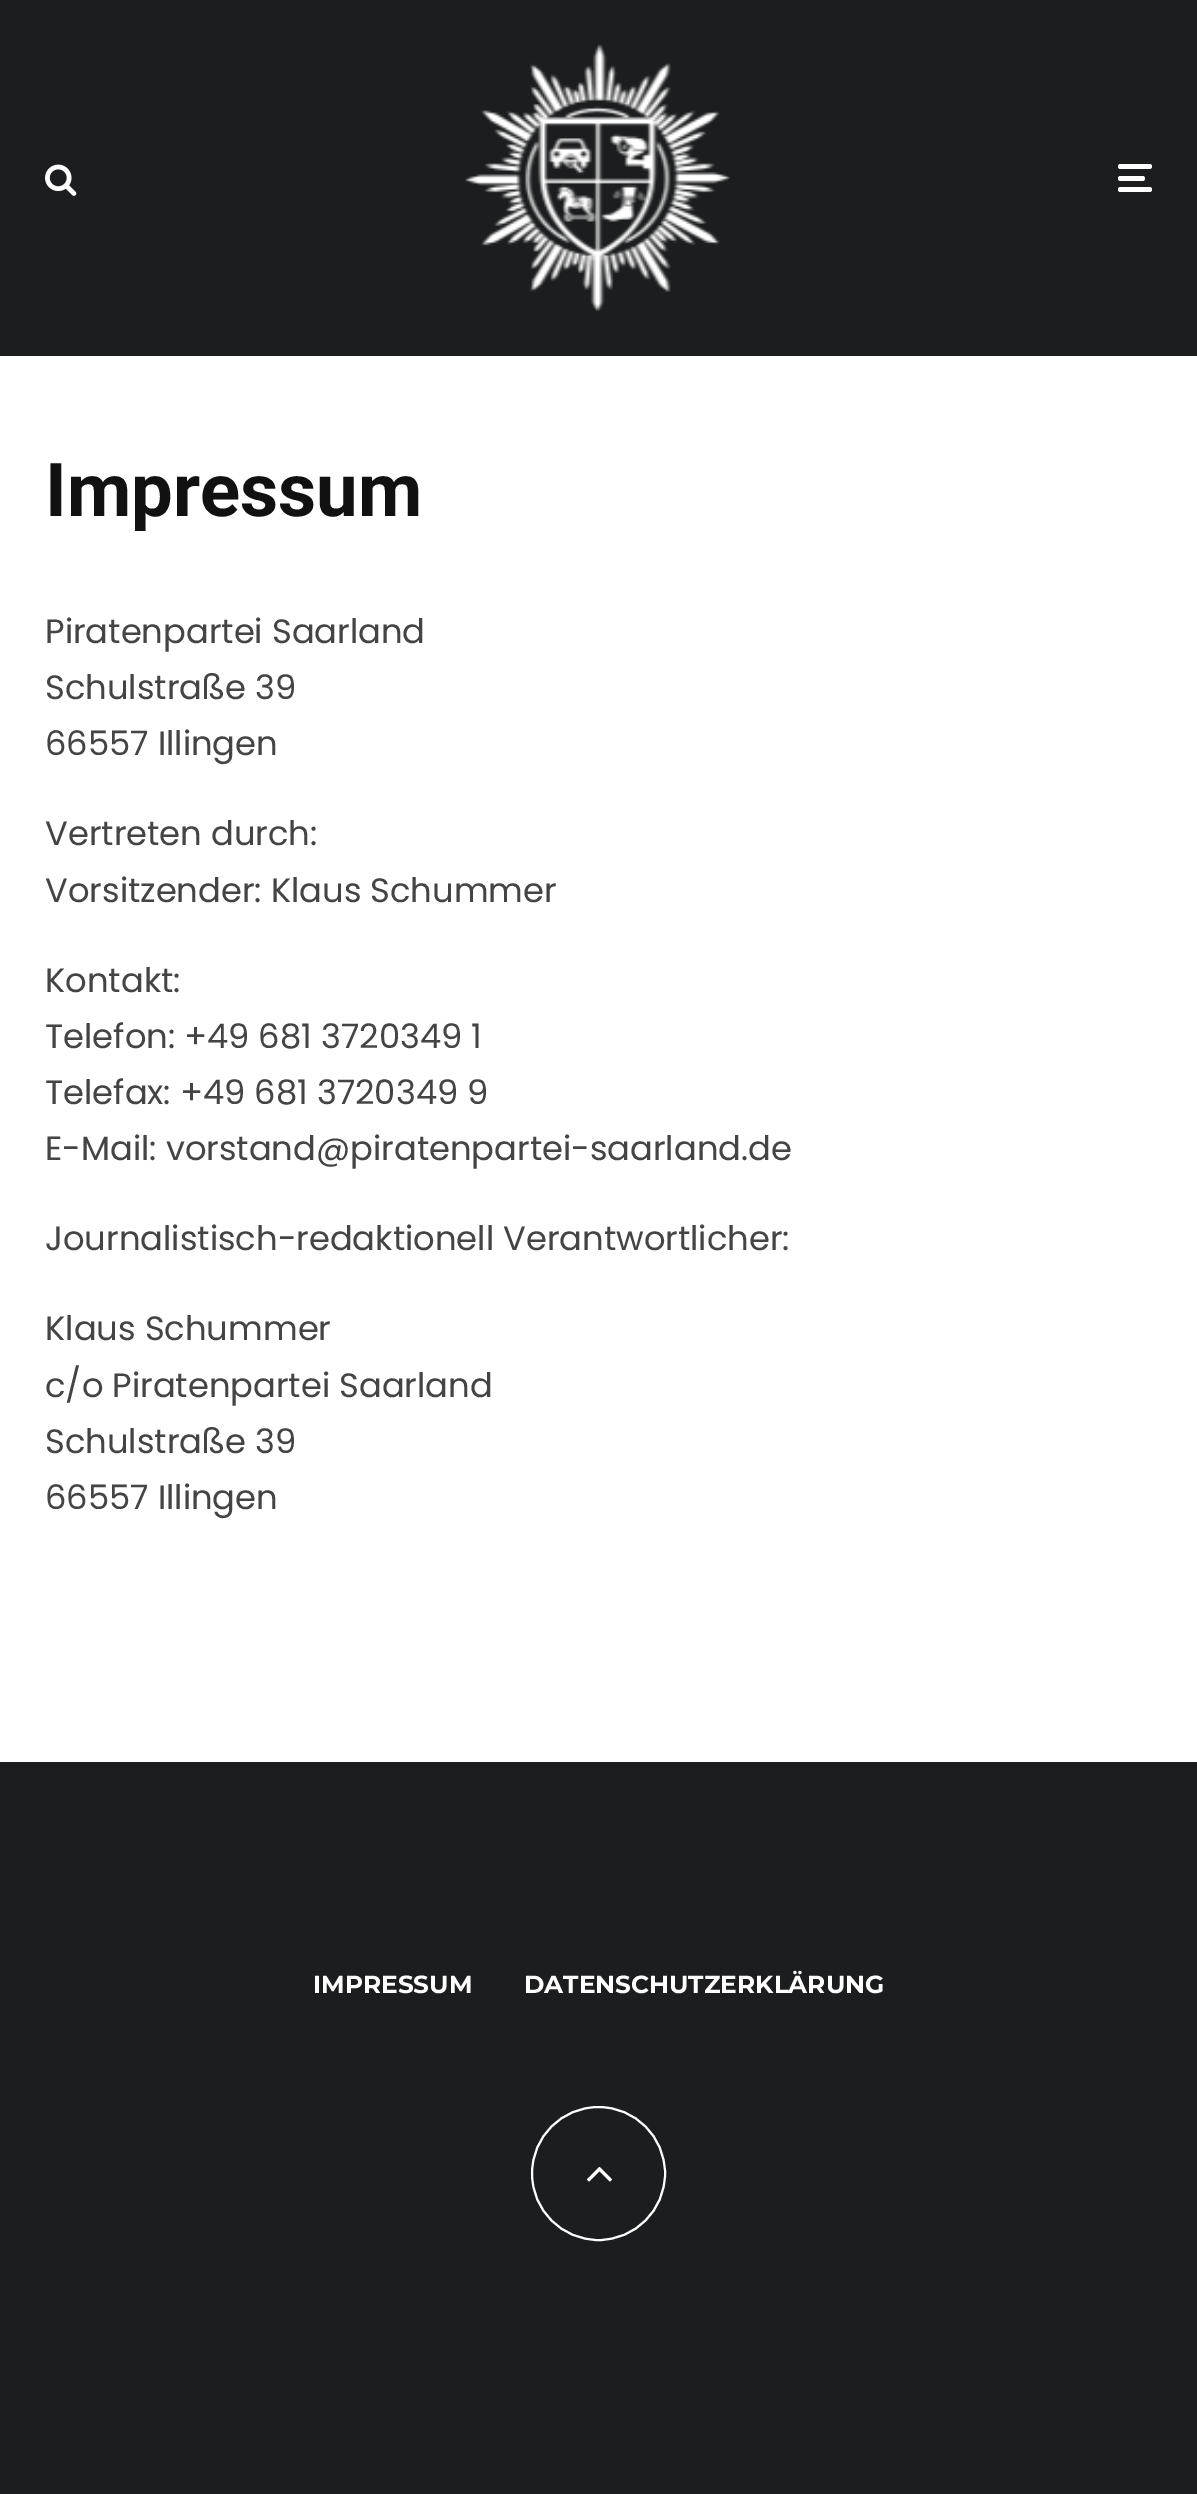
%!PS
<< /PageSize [1197 2494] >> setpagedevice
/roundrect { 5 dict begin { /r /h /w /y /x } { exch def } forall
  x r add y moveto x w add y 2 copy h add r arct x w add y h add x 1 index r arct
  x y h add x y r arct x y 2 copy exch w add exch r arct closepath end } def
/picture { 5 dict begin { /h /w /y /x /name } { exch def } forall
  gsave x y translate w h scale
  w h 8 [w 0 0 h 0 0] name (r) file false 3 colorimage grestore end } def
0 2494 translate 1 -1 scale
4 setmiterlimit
1 setgray
0 0 1197 2494 rectfill
0.11 0.114 0.118 setrgbcolor
0 0 1197 356 rectfill
(img1.rgb) 45 164 32 32 picture
(img2.rgb) 465 45 265 266 picture
1 setgray
1118 176 27 5 2.5 roundrect fill
1118 164 34 5 2.5 roundrect fill
1118 187 34 5 2.5 roundrect fill
/Roboto-Bold [74.25 0 0 -74.25 0 0] selectfont
0.067 setgray
45 516 moveto (Impressum) show
/Poppins-Regular [33.75 0 0 -33.75 0 0] selectfont
0.267 setgray
45 643 moveto (Piratenpartei Saarland) show
45 699 moveto (Schulstraße 39) show
45 755 moveto (66557 Illingen) show
45 845 moveto (Vertreten durch:) show
45 902 moveto (Vorsitzender: Klaus Schummer) show
45 992 moveto (Kontakt:) show
45 1048 moveto (Telefon: +49 681 3720349 1) show
45 1104 moveto (Telefax: +49 681 3720349 9) show
45 1160 moveto (E-Mail: vorstand@piratenpartei-saarland.de) show
45 1250 moveto (Journalistisch-redaktionell Verantwortlicher:) show
45 1340 moveto (Klaus Schummer) show
45 1397 moveto (c/o Piratenpartei Saarland) show
45 1453 moveto (Schulstraße 39) show
45 1509 moveto (66557 Illingen) show
0.11 0.114 0.118 setrgbcolor
0 1762 1197 732 rectfill
/Montserrat-Bold [24.75 0 0 -24.75 0 0] selectfont
1 setgray
313 1993 moveto (IMPRESSUM) show
524 1993 moveto (DATENSCHUTZERKLÄRUNG) show
2 setlinewidth
newpath 598.5 2173.5 66.5 0 360 arc closepath stroke
(img3.rgb) 587 2167 25 15 picture
showpage
